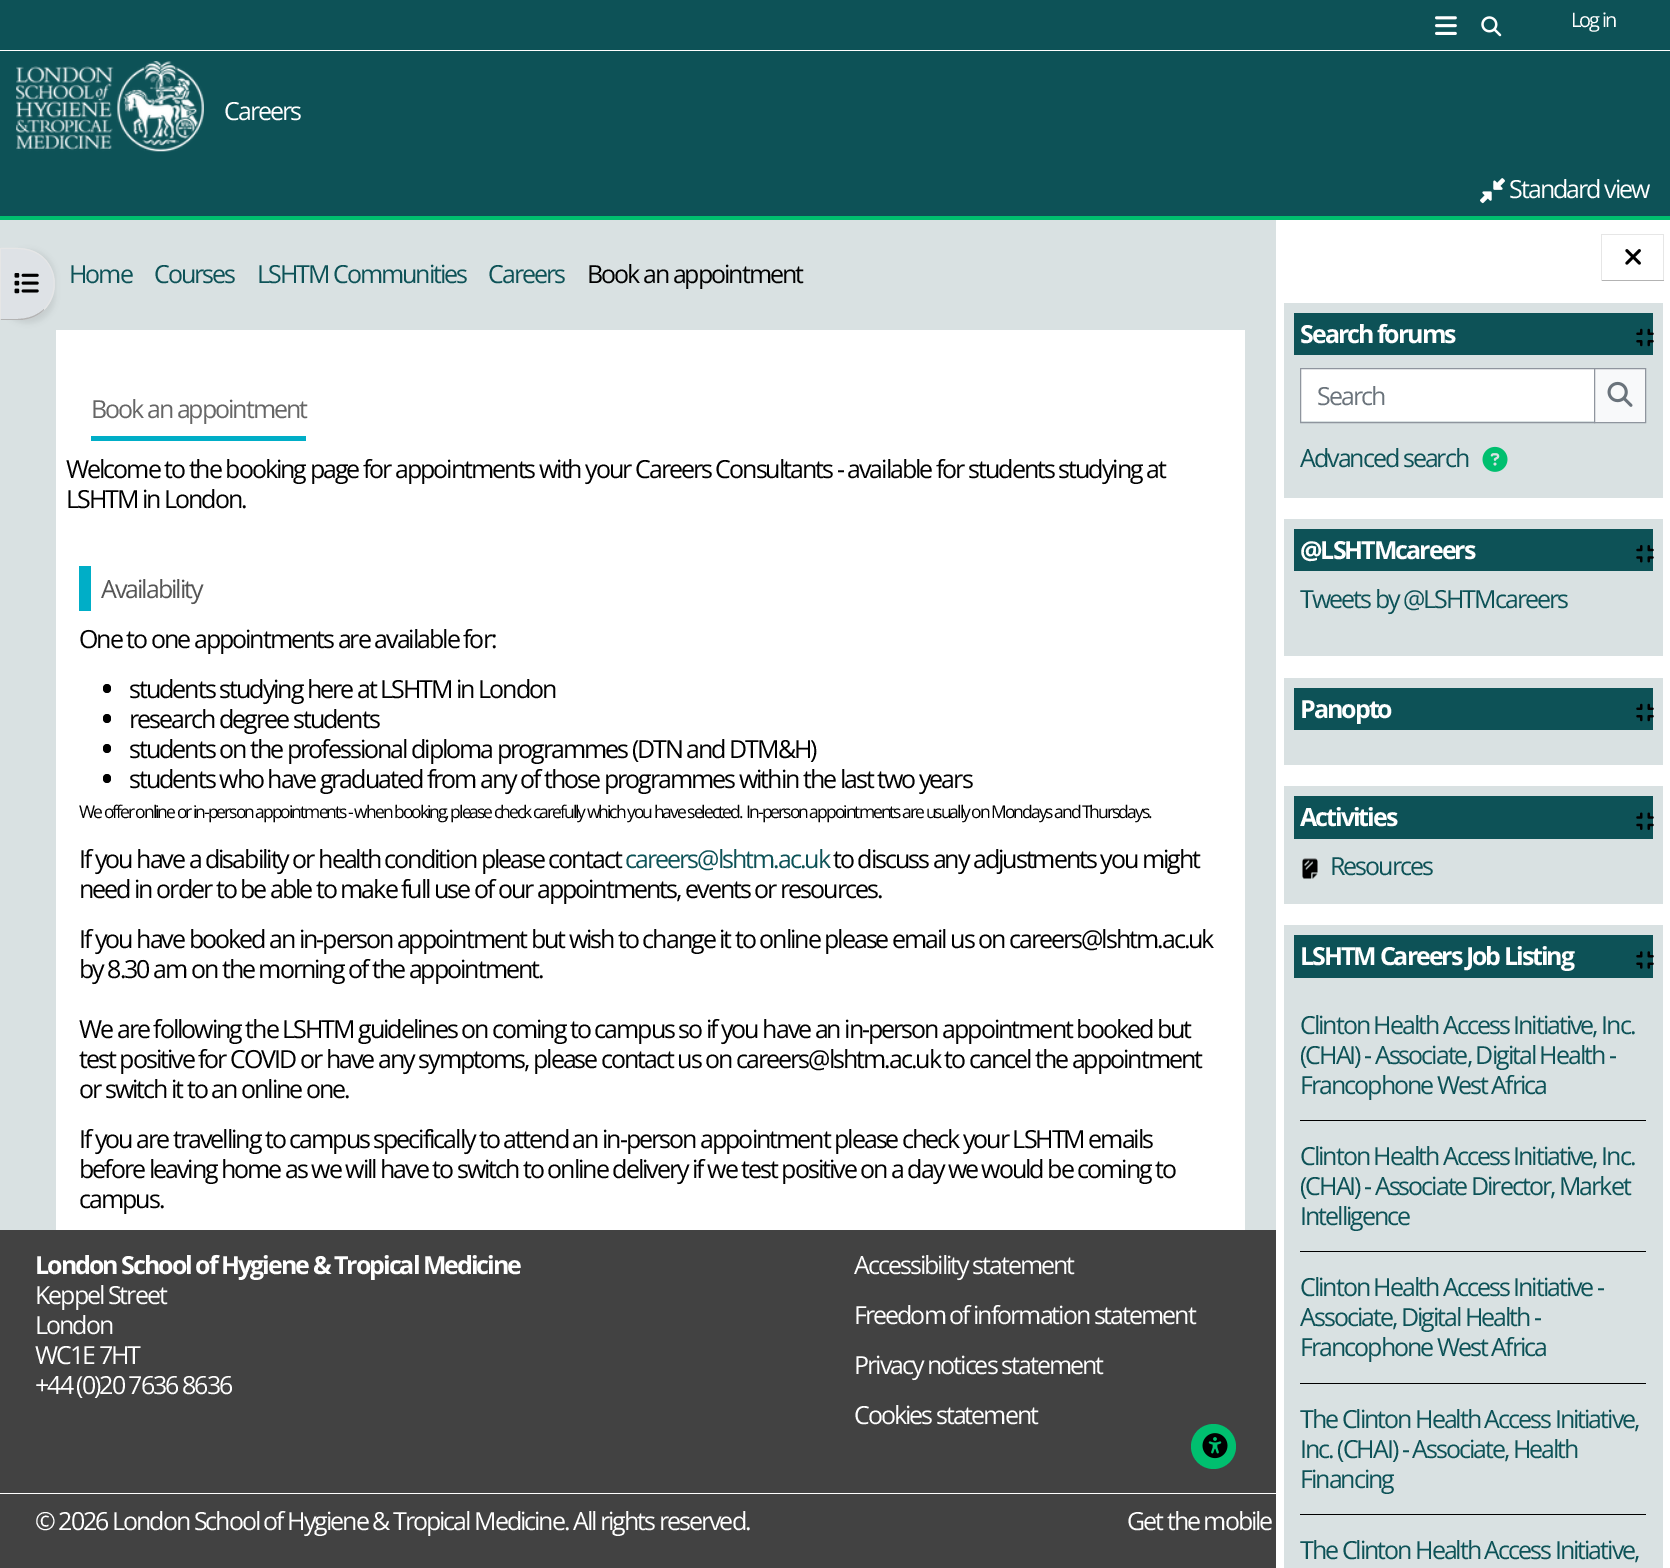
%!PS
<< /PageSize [1670 1568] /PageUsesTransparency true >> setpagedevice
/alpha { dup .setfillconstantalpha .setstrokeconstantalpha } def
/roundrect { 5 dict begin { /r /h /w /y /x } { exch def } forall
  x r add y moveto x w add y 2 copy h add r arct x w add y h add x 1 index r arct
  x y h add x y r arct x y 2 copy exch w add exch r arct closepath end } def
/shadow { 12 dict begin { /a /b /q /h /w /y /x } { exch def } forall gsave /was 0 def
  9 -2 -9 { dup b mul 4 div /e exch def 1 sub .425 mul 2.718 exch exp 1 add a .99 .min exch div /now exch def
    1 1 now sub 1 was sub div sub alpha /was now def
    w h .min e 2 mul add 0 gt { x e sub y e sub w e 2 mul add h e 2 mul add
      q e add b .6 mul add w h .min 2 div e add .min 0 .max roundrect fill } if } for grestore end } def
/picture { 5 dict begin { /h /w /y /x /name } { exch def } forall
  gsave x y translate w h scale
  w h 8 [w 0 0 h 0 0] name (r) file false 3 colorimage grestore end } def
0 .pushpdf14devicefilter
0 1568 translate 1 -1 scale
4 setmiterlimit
0.851 0.882 0.886 setrgbcolor
0 0 1670 1568 rectfill
0.051 0.322 0.341 setrgbcolor
0 0 1670 216 rectfill
1 setgray
0 50 1670 1 rectfill
(img1.rgb) 1435 16 22 19 picture
(img2.rgb) 1481 16 21 21 picture
/OpenSans-Regular [20 0 0 -20 0 0] selectfont
1571 27 moveto -2 0 (Log in) ashow
(img3.rgb) 16 61 188 91 picture
/OpenSans-Regular [25 0 0 -25 0 0] selectfont
224 120 moveto -2 0 (Careers) ashow
0 0.749 0.435 setrgbcolor
0 216 1670 4 rectfill
(img4.rgb) 1480 178 25 26 picture
1 setgray
1509 198 moveto -2 0 (Standard view) ashow
56 330 1189 900 rectfill
0 setgray
0 250 55 73 36 2.5 0.07 shadow
0.871 0.886 0.902 setrgbcolor
newpath 0 248 moveto 19 248 lineto 39 248 55 264 55 284 curveto 55 304 39 320 19 320 curveto 0 320 lineto closepath fill
0.902 setgray
newpath 44 258 moveto 32 246 16 248 0 248 curveto 2 249 lineto 17 249 32 247 44 259 curveto closepath 44 258 moveto 58 272 58 296 44 310 curveto 44 309 lineto 57 295 57 272 44 259 curveto closepath fill
0.702 setgray
newpath 19 320 moveto 29 320 38 316 44 310 curveto 44 309 lineto 31 321 17 319 1 319 curveto 0 320 lineto closepath fill
0.902 setgray
newpath 1 249 moveto 2 249 lineto 0 248 lineto 0 320 lineto 1 319 lineto closepath fill
(img5.rgb) 14 273 25 21 picture
0.051 0.322 0.341 setrgbcolor
69 283 moveto -2 0 (Home) ashow
154 283 moveto -2 0 (Courses) ashow
257 283 moveto -2 0 (LSHTM Communities) ashow
488 283 moveto -2 0 (Careers) ashow
0 setgray
587 283 moveto -2 0 (Book an appointment) ashow
0.4 setgray
91 418 moveto -2 0 (Book an appointment) ashow
0 0.682 0.78 setrgbcolor
91 436 215 5 rectfill
0 setgray
66 478 moveto -2 0 (Welcome to the booking page for appointments with your Careers Consultants - available for students studying at) ashow
66 508 moveto -2 0 (LSHTM in London.) ashow
0 0.682 0.78 setrgbcolor
79 566 12 45 rectfill
0.333 setgray
101 598 moveto -2 0 (Availability) ashow
0 setgray
79 648 moveto -2 0 (One to one appointments are available for:) ashow
103 684 8 9 4 roundrect fill
129 698 moveto -2 0 (students studying here at LSHTM in London) ashow
103 714 8 9 4 roundrect fill
129 728 moveto -2 0 (research degree students) ashow
103 744 8 9 4 roundrect fill
129 758 moveto -2 0 (students on the professional diploma programmes \(DTN and DTM&H\)) ashow
103 774 8 9 4 roundrect fill
129 788 moveto -2 0 (students who have graduated from any of those programmes within the last two years) ashow
/OpenSans-Regular [17.5 0 0 -17.5 0 0] selectfont
79 818 moveto -2 0 (We offer online or in-person appointments - when booking, please check carefully which you have selected.  In-person appointments are usually on Mondays and Thursdays.) ashow
/OpenSans-Regular [25 0 0 -25 0 0] selectfont
79 868 moveto -2 0 (If you have a disability or health condition please contact) ashow
0.051 0.322 0.341 setrgbcolor
625 868 moveto -2 0 (careers@lshtm.ac.uk) ashow
0 setgray
833 868 moveto -2 0 (to discuss any adjustments you might) ashow
79 898 moveto -2 0 (need in order to be able to make full use of our appointments, events or resources.) ashow
79 948 moveto -2 0 (If you have booked an in-person appointment but wish to change it to online please email us on careers@lshtm.ac.uk) ashow
79 978 moveto -2 0 (by 8.30 am on the morning of the appointment.) ashow
79 1038 moveto -2 0 (We are following the LSHTM guidelines on coming to campus so if you have an in-person appointment booked but) ashow
79 1068 moveto -2 0 (test positive for COVID or have any symptoms, please contact us on careers@lshtm.ac.uk to cancel the appointment) ashow
79 1098 moveto -2 0 (or switch it to an online one.) ashow
79 1148 moveto -2 0 (If you are travelling to campus specifically to attend an in-person appointment please check your LSHTM emails) ashow
79 1178 moveto -2 0 (before leaving home as we will have to switch to online delivery if we test positive on a day we would be coming to) ashow
79 1208 moveto -2 0 (campus.) ashow
0.259 setgray
0 1230 1276 338 rectfill
0 0.749 0.435 setrgbcolor
newpath 1213.5 1446.5 22.5 0 360 arc closepath fill
(img6.rgb) 1202 1433 26 26 picture
1 setgray
1276 220 394 1348 rectfill
0.902 setgray
1601 234 63 1 rectfill
1663 234 1 47 rectfill
0.702 setgray
1601 280 63 1 rectfill
0.902 setgray
1601 234 1 47 rectfill
(img7.rgb) 1625 249 16 16 picture
0.851 0.882 0.886 setrgbcolor
1284 303 379 195 rectfill
0.051 0.322 0.341 setrgbcolor
1294 313 359 42 rectfill
/OpenSans-Bold [25 0 0 -25 0 0] selectfont
1 setgray
1300 343 moveto -2 0 (Search forums) ashow
(img8.rgb) 1636 328 18 19 picture
1301 369 293 52 rectfill
0.561 0.584 0.62 setrgbcolor
1300.5 368.5 294 54 rectstroke
/OpenSans-Regular [25 0 0 -25 0 0] selectfont
0.416 0.451 0.482 setrgbcolor
1317 405 moveto -2 0 (Search) ashow
0.973 0.976 0.98 setrgbcolor
newpath 1594.5 368.5 moveto 1645.5 368.5 lineto 1645.5 422.5 lineto 1594.5 422.5 lineto closepath gsave fill grestore
0.561 0.584 0.62 setrgbcolor
stroke
(img9.rgb) 1607 381 26 26 picture
0.051 0.322 0.341 setrgbcolor
1300 467 moveto -2 0 (Advanced search) ashow
(img10.rgb) 1482 446 26 26 picture
0.851 0.882 0.886 setrgbcolor
1284 519 379 137 rectfill
0.051 0.322 0.341 setrgbcolor
1294 529 359 42 rectfill
/OpenSans-Bold [25 0 0 -25 0 0] selectfont
1 setgray
1300 559 moveto -2 0 (@LSHTMcareers) ashow
(img11.rgb) 1636 545 18 18 picture
/OpenSans-Regular [25 0 0 -25 0 0] selectfont
0.051 0.322 0.341 setrgbcolor
1300 608 moveto -2 0 (Tweets by @LSHTMcareers) ashow
0.851 0.882 0.886 setrgbcolor
1284 678 379 87 rectfill
0.051 0.322 0.341 setrgbcolor
1294 688 359 42 rectfill
/OpenSans-Bold [25 0 0 -25 0 0] selectfont
1 setgray
1300 718 moveto -2 0 (Panopto) ashow
(img8.rgb) 1636 703 18 19 picture
0.851 0.882 0.886 setrgbcolor
1284 786 379 118 rectfill
0.051 0.322 0.341 setrgbcolor
1294 796 359 43 rectfill
1 setgray
1300 826 moveto -2 0 (Activities) ashow
(img12.rgb) 1636 812 18 18 picture
(img13.rgb) 1302 858 16 21 picture
/OpenSans-Regular [25 0 0 -25 0 0] selectfont
0.051 0.322 0.341 setrgbcolor
1330 875 moveto -2 0 (Resources) ashow
0.851 0.882 0.886 setrgbcolor
1284 925 379 643 rectfill
0.051 0.322 0.341 setrgbcolor
1294 935 359 43 rectfill
/OpenSans-Bold [25 0 0 -25 0 0] selectfont
1 setgray
1300 965 moveto -2 0 (LSHTM Careers Job Listing) ashow
(img14.rgb) 1636 951 18 18 picture
/OpenSans-Regular [25 0 0 -25 0 0] selectfont
0.051 0.322 0.341 setrgbcolor
1300 1034 moveto -2 0 (Clinton Health Access Initiative, Inc.) ashow
1300 1064 moveto -2 0 (\(CHAI\) - Associate, Digital Health -) ashow
1300 1094 moveto -2 0 (Francophone West Africa) ashow
0 setgray
1300 1120 346 1 rectfill
0.051 0.322 0.341 setrgbcolor
1300 1165 moveto -2 0 (Clinton Health Access Initiative, Inc.) ashow
1300 1195 moveto -2 0 (\(CHAI\) - Associate Director, Market) ashow
1300 1225 moveto -2 0 (Intelligence) ashow
0 setgray
1300 1251 346 1 rectfill
0.051 0.322 0.341 setrgbcolor
1300 1296 moveto -2 0 (Clinton Health Access Initiative -) ashow
1300 1326 moveto -2 0 (Associate, Digital Health -) ashow
1300 1356 moveto -2 0 (Francophone West Africa) ashow
0 setgray
1300 1383 346 1 rectfill
0.051 0.322 0.341 setrgbcolor
1300 1428 moveto -2 0 (The Clinton Health Access Initiative,) ashow
1300 1458 moveto -2 0 (Inc. \(CHAI\) - Associate, Health) ashow
1300 1488 moveto -2 0 (Financing) ashow
0 setgray
1300 1514 346 1 rectfill
0.051 0.322 0.341 setrgbcolor
1300 1559 moveto -2 0 (The Clinton Health Access Initiative,) ashow
/OpenSans-Bold [25 0 0 -25 0 0] selectfont
1 setgray
35 1274 moveto -2 0 (London School of Hygiene & Tropical Medicine) ashow
/OpenSans-Regular [25 0 0 -25 0 0] selectfont
35 1304 moveto -2 0 (Keppel Street) ashow
35 1334 moveto -2 0 (London) ashow
35 1364 moveto -2 0 (WC1E 7HT) ashow
35 1394 moveto -2 0 (+44 \(0\)20 7636 8636) ashow
854 1274 moveto -2 0 (Accessibility statement) ashow
854 1324 moveto -2 0 (Freedom of information statement) ashow
854 1374 moveto -2 0 (Privacy notices statement) ashow
854 1424 moveto -2 0 (Cookies statement) ashow
0 1493 1276 1 rectfill
35 1530 moveto -2 0 (© 2026 London School of Hygiene & Tropical Medicine. All rights reserved.) ashow
1127 1530 moveto -2 0 (Get the mobile) ashow
.poppdf14devicefilter showpage
